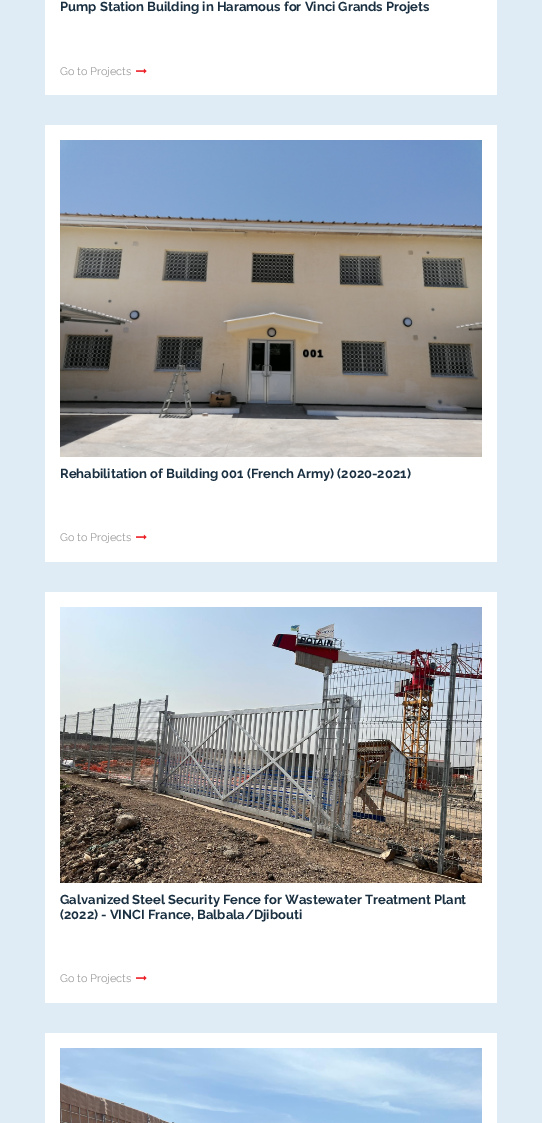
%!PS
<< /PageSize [542 1123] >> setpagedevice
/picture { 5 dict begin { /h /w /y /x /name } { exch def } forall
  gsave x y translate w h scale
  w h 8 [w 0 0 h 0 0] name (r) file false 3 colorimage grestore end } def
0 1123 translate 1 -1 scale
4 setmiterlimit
0.875 0.922 0.961 setrgbcolor
0 0 542 1123 rectfill
1 setgray
45 0 452 95 rectfill
/Raleway-Bold [13 0 0 -13 0 0] selectfont
0.102 0.188 0.255 setrgbcolor
60 11 moveto (Pump Station Building in Haramous for Vinci Grands Projets) show
/Raleway-Regular [11 0 0 -11 0 0] selectfont
0.6 setgray
60 75 moveto (Go to Projects) show
(img1.rgb) 136 68 11 6 picture
1 setgray
45 125 452 437 rectfill
(img2.rgb) 60 140 422 317 picture
/Raleway-Bold [13 0 0 -13 0 0] selectfont
0.102 0.188 0.255 setrgbcolor
60 478 moveto (Rehabilitation of Building 001 \(French Army\) \(2020-2021\)) show
/Raleway-Regular [11 0 0 -11 0 0] selectfont
0.6 setgray
60 541 moveto (Go to Projects) show
(img1.rgb) 136 534 11 6 picture
1 setgray
45 592 452 411 rectfill
(img3.rgb) 60 607 422 276 picture
/Raleway-Bold [13 0 0 -13 0 0] selectfont
0.102 0.188 0.255 setrgbcolor
60 904 moveto (Galvanized Steel Security Fence for Wastewater Treatment Plant) show
60 919 moveto (\(2022\) - VINCI France, Balbala/Djibouti) show
/Raleway-Regular [11 0 0 -11 0 0] selectfont
0.6 setgray
60 982 moveto (Go to Projects) show
(img1.rgb) 136 975 11 6 picture
1 setgray
45 1033 452 90 rectfill
(img4.rgb) 60 1048 422 75 picture
showpage
